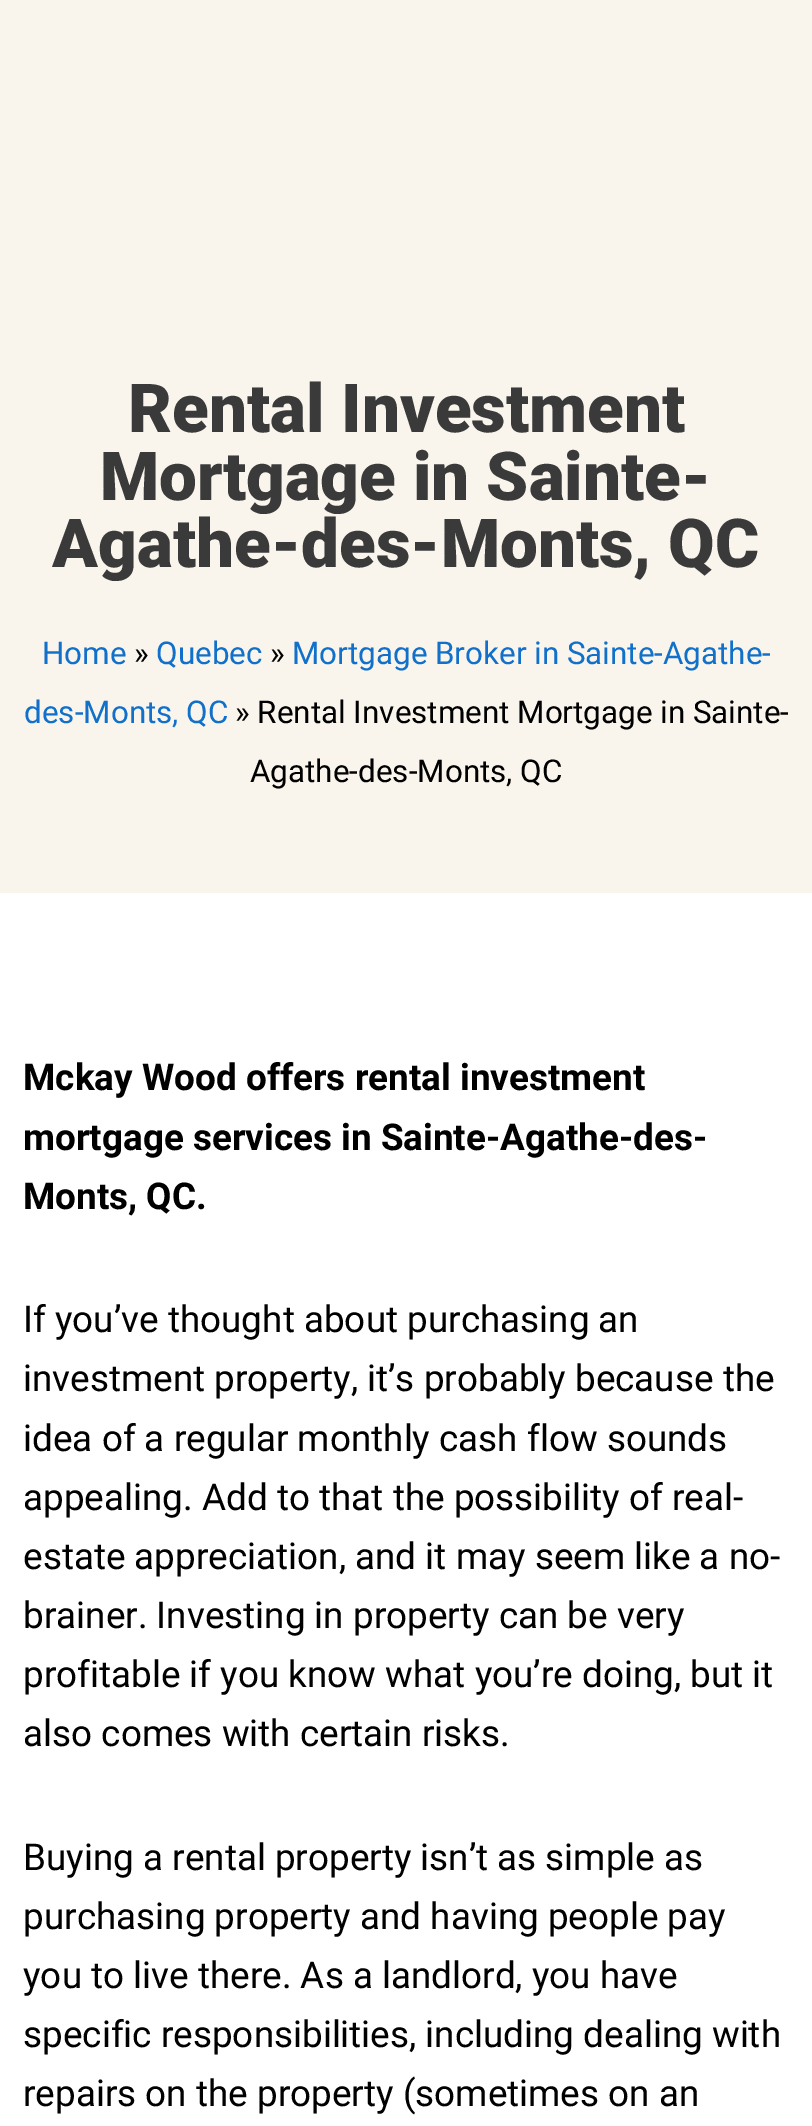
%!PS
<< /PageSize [812 2126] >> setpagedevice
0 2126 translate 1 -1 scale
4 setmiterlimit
1 setgray
0 0 812 2126 rectfill
0.976 0.961 0.925 setrgbcolor
0 0 812 893 rectfill
/Roboto-Black [67.5 0 0 -67.5 0 0] selectfont
0.227 setgray
128 432 moveto (Rental Investment) show
100 500 moveto (Mortgage in Sainte-) show
52 567 moveto (Agathe-des-Monts, QC) show
/Roboto-Regular [31.4 0 0 -31.4 0 0] selectfont
0.063 0.439 0.792 setrgbcolor
42 664 moveto (Home) show
0 setgray
134 664 moveto (») show
0.063 0.439 0.792 setrgbcolor
156 664 moveto (Quebec) show
0 setgray
270 664 moveto (») show
0.063 0.439 0.792 setrgbcolor
292 664 moveto (Mortgage Broker in Sainte-Agathe-) show
24 723 moveto (des-Monts, QC) show
0 setgray
235 723 moveto (» Rental Investment Mortgage in Sainte-) show
250 782 moveto (Agathe-des-Monts, QC) show
/Roboto-Bold [36.9 0 0 -36.9 0 0] selectfont
23 1090 moveto (Mckay Wood offers rental investment) show
23 1150 moveto (mortgage services in Sainte-Agathe-des-) show
23 1209 moveto (Monts, QC.) show
/Roboto-Regular [36.9 0 0 -36.9 0 0] selectfont
23 1332 moveto (If you’ve thought about purchasing an) show
23 1391 moveto (investment property, it’s probably because the) show
23 1451 moveto (idea of a regular monthly cash flow sounds) show
23 1510 moveto (appealing. Add to that the possibility of real-) show
23 1569 moveto (estate appreciation, and it may seem like a no-) show
23 1628 moveto (brainer. Investing in property can be very) show
23 1687 moveto (profitable if you know what you’re doing, but it) show
23 1746 moveto (also comes with certain risks.) show
23 1870 moveto (Buying a rental property isn’t as simple as) show
23 1929 moveto (purchasing property and having people pay) show
23 1988 moveto (you to live there. As a landlord, you have) show
23 2047 moveto (specific responsibilities, including dealing with) show
23 2106 moveto (repairs on the property \(sometimes on an) show
showpage
